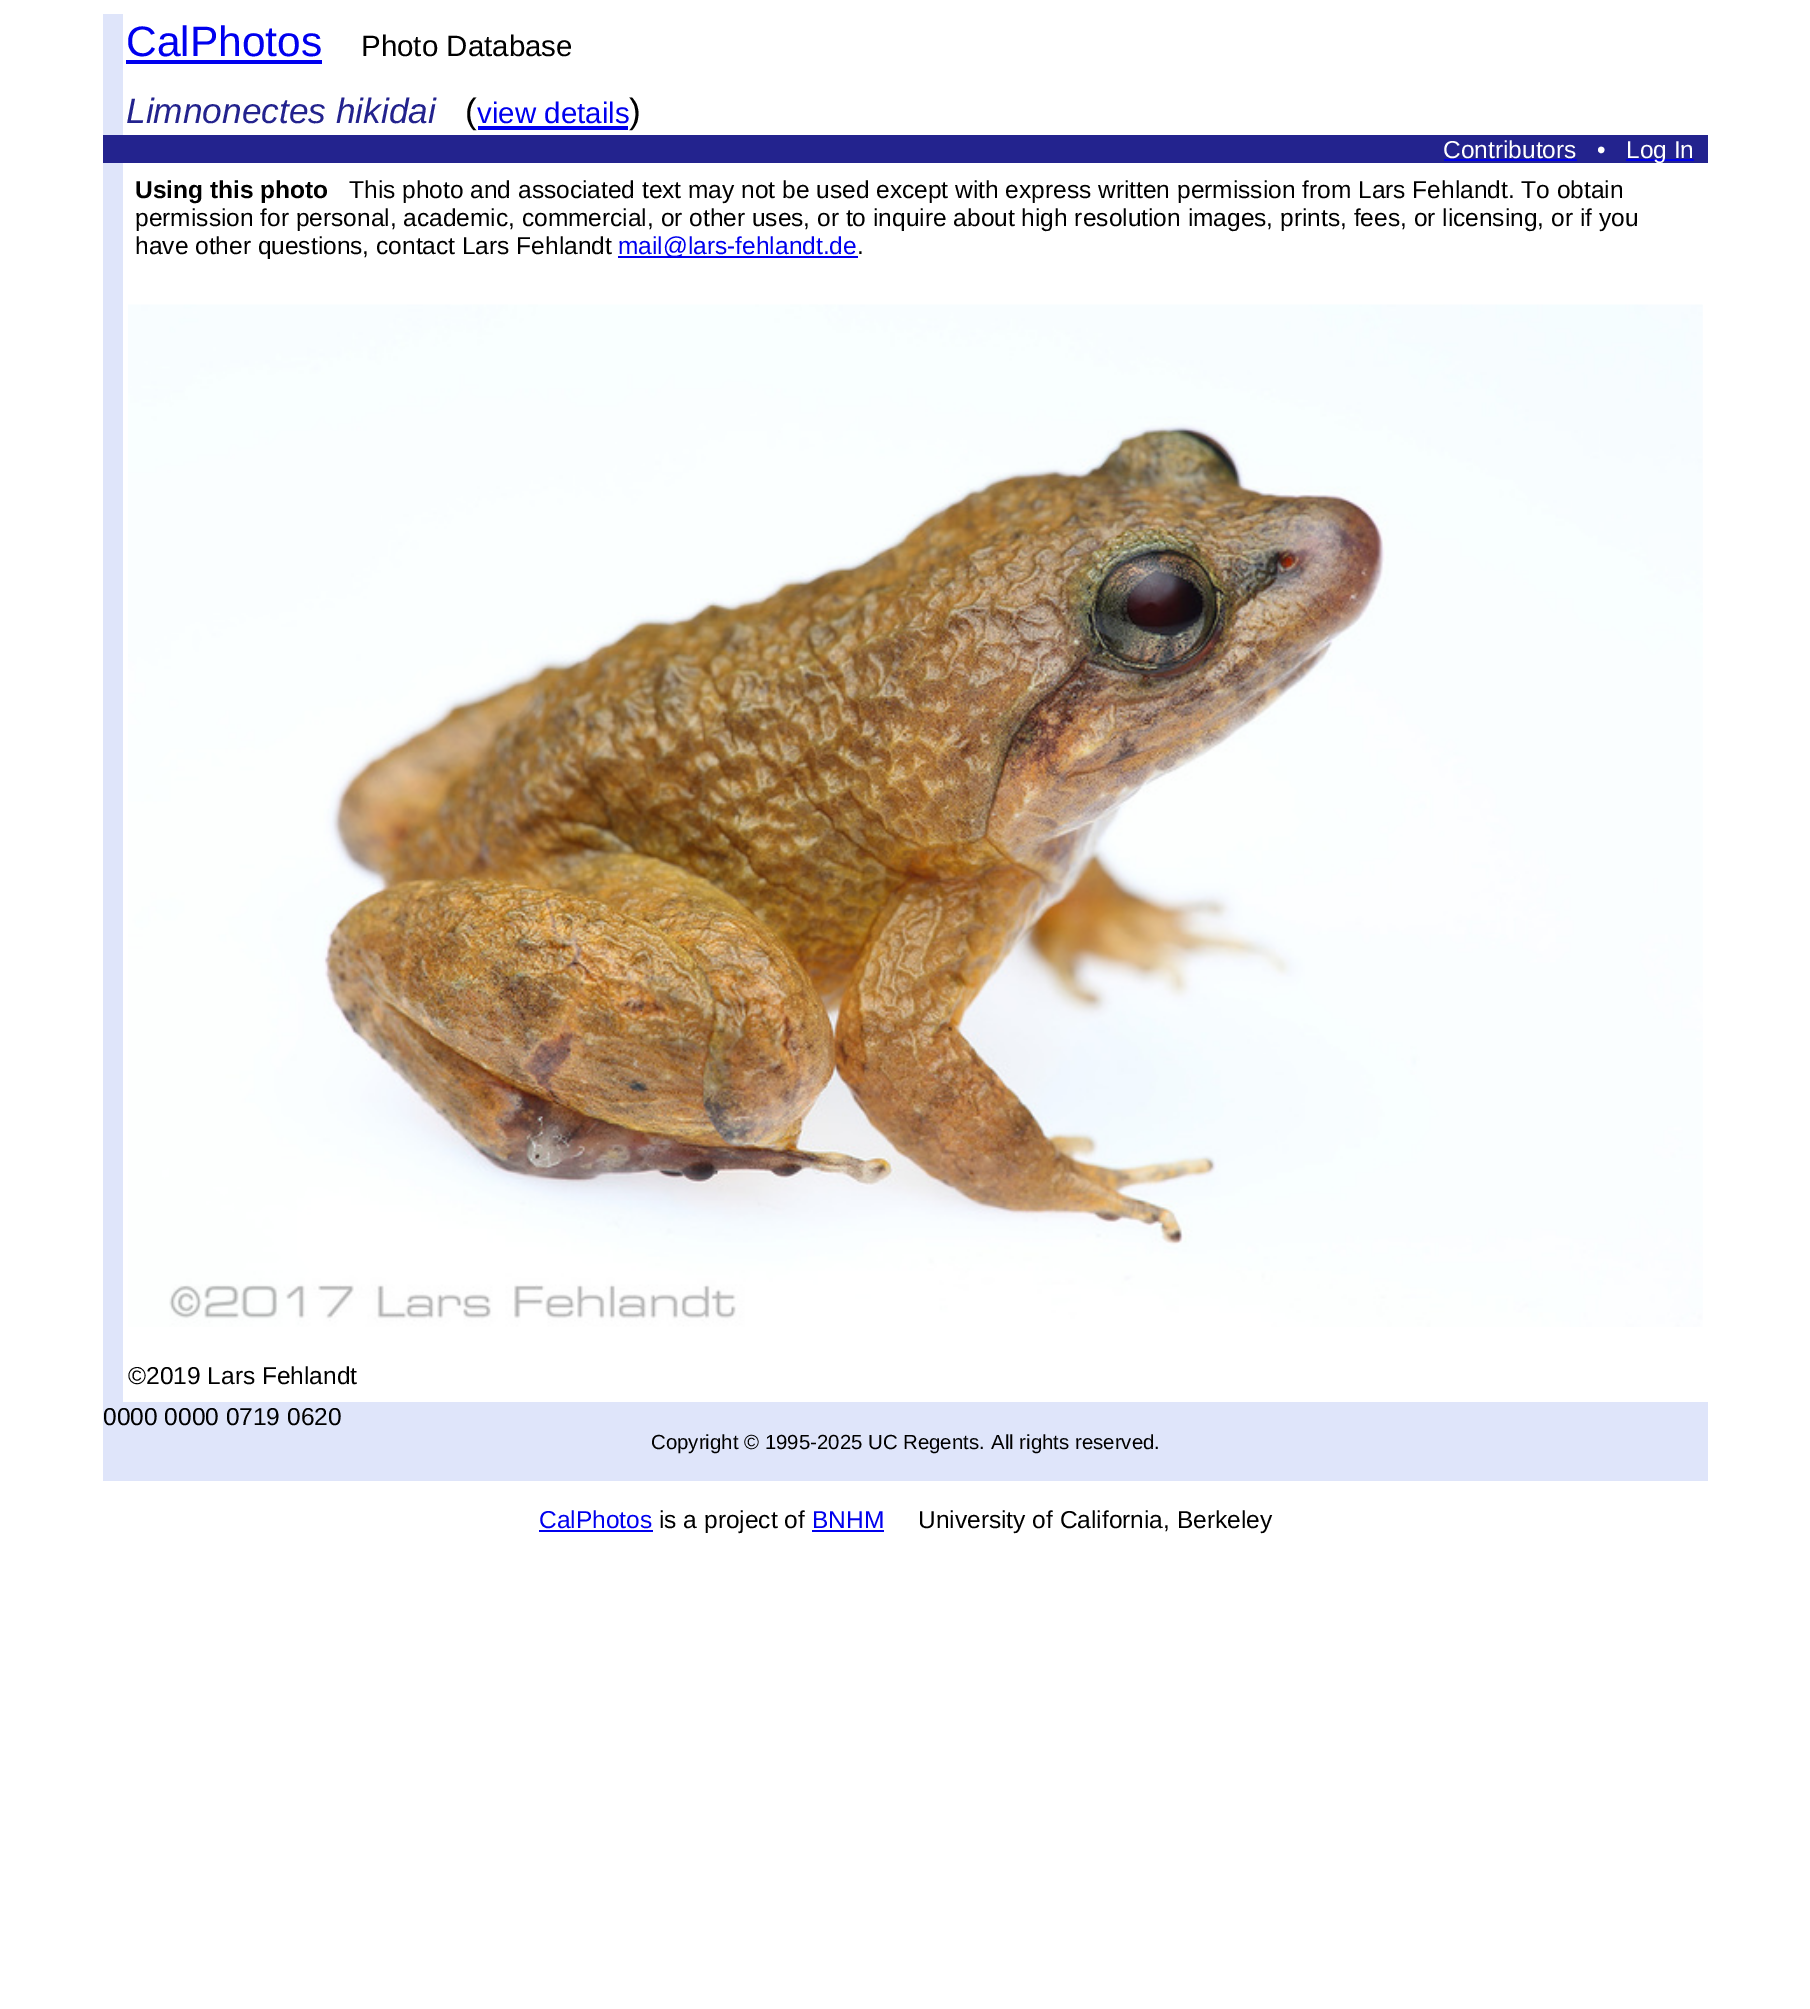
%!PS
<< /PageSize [1810 2009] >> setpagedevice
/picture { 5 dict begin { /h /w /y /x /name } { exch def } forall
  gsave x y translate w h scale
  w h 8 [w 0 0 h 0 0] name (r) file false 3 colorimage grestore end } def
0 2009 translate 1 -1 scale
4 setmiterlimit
1 setgray
0 0 1810 2009 rectfill
0.875 0.898 0.98 setrgbcolor
103 14 20 121 rectfill
/LiberationSans-Regular [42.5 0 0 -42.5 0 0] selectfont
0 0 0.933 setrgbcolor
126 56 moveto (CalPhotos) show
126 60 196 4 rectfill
/LiberationSans-Regular [29.5 0 0 -29.5 0 0] selectfont
0 setgray
361 56 moveto (Photo Database) show
/LiberationSans-Italic [35.25 0 0 -35.25 0 0] selectfont
0.137 0.137 0.557 setrgbcolor
126 123 moveto (Limnonectes hikidai) show
/LiberationSans-Regular [35.25 0 0 -35.25 0 0] selectfont
0 setgray
465 123 moveto (\() show
0 0 0.933 setrgbcolor
478 126 150 4 rectfill
/LiberationSans-Regular [29.5 0 0 -29.5 0 0] selectfont
477 123 moveto (view details) show
/LiberationSans-Regular [35.25 0 0 -35.25 0 0] selectfont
0 setgray
629 123 moveto (\)) show
0.137 0.137 0.557 setrgbcolor
103 135 1605 28 rectfill
/LiberationSans-Regular [24.5 0 0 -24.5 0 0] selectfont
1 setgray
1443 158 moveto (Contributors) show
0 0 0.933 setrgbcolor
1444 159 133 2 rectfill
1 setgray
1597 158 moveto (•) show
0 0 0.933 setrgbcolor
1626 159 68 2 rectfill
1 setgray
1626 158 moveto (Log In) show
0.875 0.898 0.98 setrgbcolor
103 163 20 1239 rectfill
/LiberationSans-Bold [24.5 0 0 -24.5 0 0] selectfont
0 setgray
135 198 moveto (Using this photo) show
/LiberationSans-Regular [24.5 0 0 -24.5 0 0] selectfont
349 198 moveto (This photo and associated text may not be used except with express written permission from Lars Fehlandt. To obtain) show
135 226 moveto (permission for personal, academic, commercial, or other uses, or to inquire about high resolution images, prints, fees, or licensing, or if you) show
135 254 moveto (have other questions, contact Lars Fehlandt) show
0 0 0.933 setrgbcolor
618 256 240 2 rectfill
618 254 moveto (mail@lars-fehlandt.de) show
0 setgray
857 254 moveto (.) show
(img1.rgb) 128 304 1575 1023 picture
128 1384 moveto (©2019 Lars Fehlandt) show
0.875 0.898 0.98 setrgbcolor
103 1402 1605 79 rectfill
0 setgray
103 1425 moveto (0000 0000 0719 0620) show
/LiberationSans-Regular [20.4 0 0 -20.4 0 0] selectfont
651 1449 moveto (Copyright © 1995-2025 UC Regents.) show
991 1449 moveto (All rights reserved.) show
/LiberationSans-Regular [24.5 0 0 -24.5 0 0] selectfont
0 0 0.933 setrgbcolor
539 1528 moveto (CalPhotos) show
539 1530 114 2 rectfill
0 setgray
659 1528 moveto (is a project of) show
0 0 0.933 setrgbcolor
812 1528 moveto (BNHM) show
812 1530 72 2 rectfill
0 setgray
918 1528 moveto (University of California, Berkeley) show
showpage
